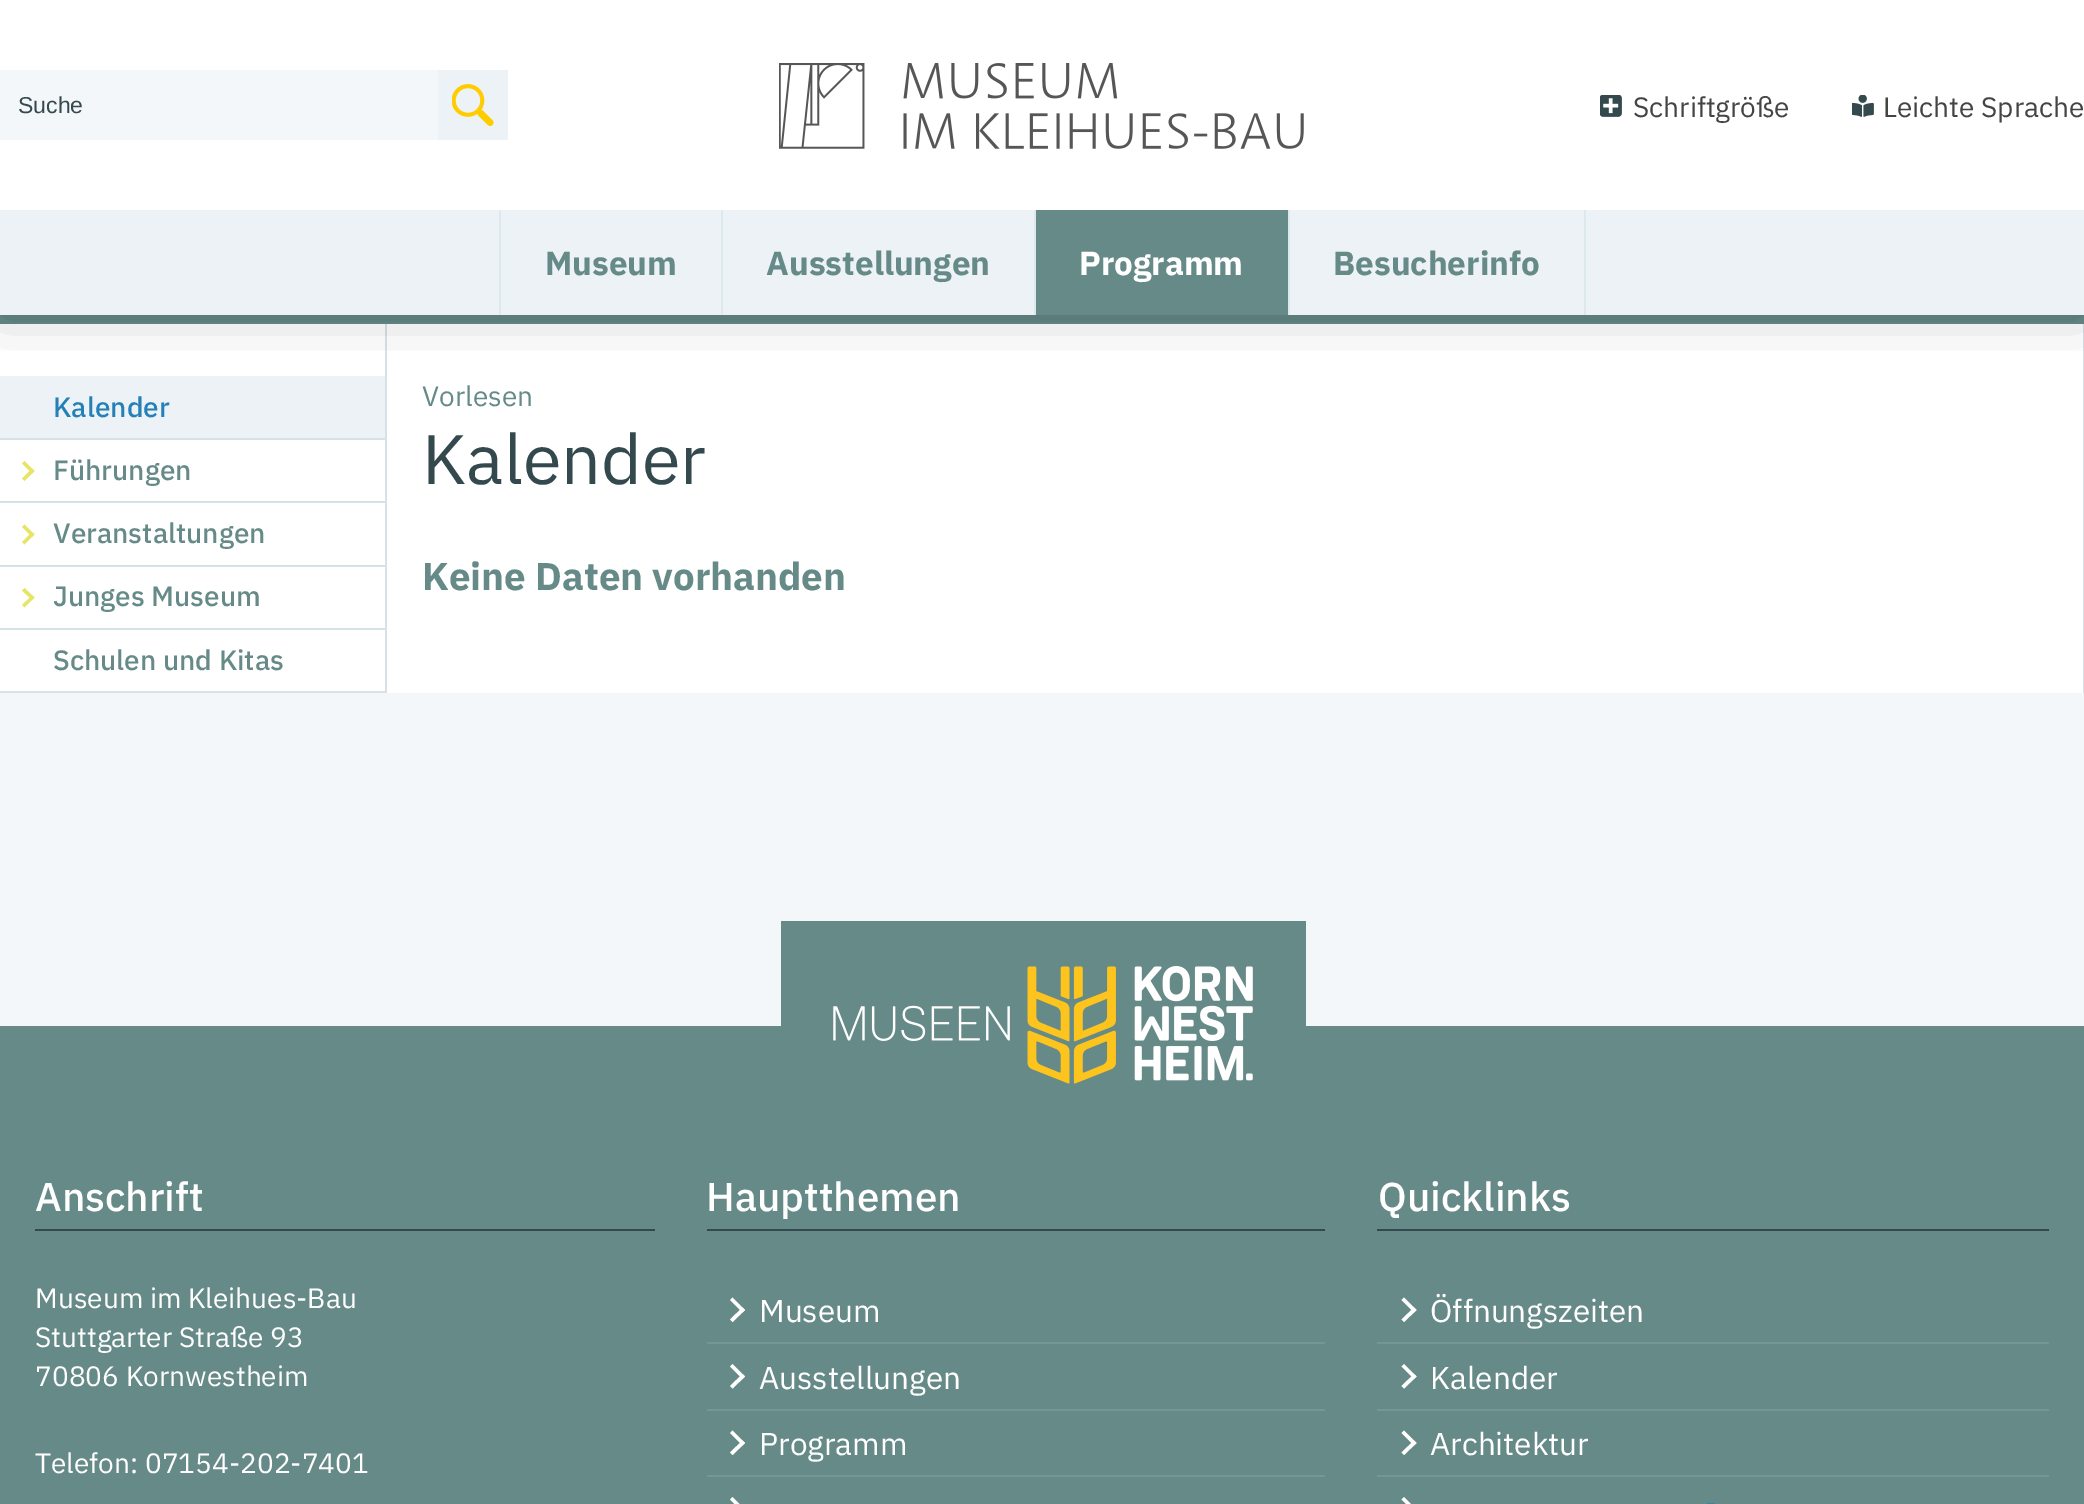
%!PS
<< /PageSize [2084 1504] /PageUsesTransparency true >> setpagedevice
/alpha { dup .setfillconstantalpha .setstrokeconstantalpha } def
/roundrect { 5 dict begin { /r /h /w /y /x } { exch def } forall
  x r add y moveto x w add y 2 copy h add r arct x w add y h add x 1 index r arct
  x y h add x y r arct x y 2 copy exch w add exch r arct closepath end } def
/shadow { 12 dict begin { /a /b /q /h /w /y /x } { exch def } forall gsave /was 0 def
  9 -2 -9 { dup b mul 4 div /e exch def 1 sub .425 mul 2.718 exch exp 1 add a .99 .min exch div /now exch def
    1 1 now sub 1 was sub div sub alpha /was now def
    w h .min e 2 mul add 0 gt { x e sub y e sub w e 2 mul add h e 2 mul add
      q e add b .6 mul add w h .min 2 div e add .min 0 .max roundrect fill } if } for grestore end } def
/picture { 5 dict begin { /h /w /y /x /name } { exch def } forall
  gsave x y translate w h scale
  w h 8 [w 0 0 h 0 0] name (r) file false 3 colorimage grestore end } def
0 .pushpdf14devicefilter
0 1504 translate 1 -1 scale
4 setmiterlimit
1 setgray
0 0 2084 1504 rectfill
0.4 0.541 0.533 setrgbcolor
0 315 2084 9 rectfill
0.925 0.949 0.961 setrgbcolor
0 376 385 62 rectfill
0.839 0.886 0.91 setrgbcolor
2083 324 1 369 rectfill
385 324 2 369 rectfill
gsave
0 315 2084 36 rectclip
0 setgray
0 0 2084 315 0 28 0.2 shadow
grestore
0.953 0.969 0.976 setrgbcolor
0 70 438 70 rectfill
/LiberationSans-Regular [23 0 0 -23 0 0] selectfont
0.204 0.286 0.302 setrgbcolor
18 113 moveto (Suche) show
0.925 0.949 0.961 setrgbcolor
438 70 70 70 rectfill
(img1.rgb) 452 84 42 42 picture
(img2.rgb) 779 63 525 86 picture
(img3.rgb) 1600 95 22 22 picture
/IBMPlexSans-Regular [28 0 0 -28 0 0] selectfont
0.267 setgray
1633 117 moveto (Schriftgröße) show
(img4.rgb) 1852 95 22 22 picture
1883 117 moveto (Leichte Sprache) show
0.925 0.949 0.961 setrgbcolor
0 210 2084 105 rectfill
0.871 0.914 0.933 setrgbcolor
499 210 2 105 rectfill
/IBMPlexSans-Bold [33.25 0 0 -33.25 0 0] selectfont
0.4 0.541 0.533 setrgbcolor
545 275 moveto (Museum) show
0.871 0.914 0.933 setrgbcolor
721 210 2 105 rectfill
0.4 0.541 0.533 setrgbcolor
766 275 moveto (Ausstellungen) show
1036 210 252 105 rectfill
0.871 0.914 0.933 setrgbcolor
1034 210 2 105 rectfill
1 setgray
1079 275 moveto (Programm) show
0.871 0.914 0.933 setrgbcolor
1584 210 2 105 rectfill
1288 210 2 105 rectfill
0.4 0.541 0.533 setrgbcolor
1333 275 moveto (Besucherinfo) show
0.839 0.886 0.91 setrgbcolor
0 438 385 2 rectfill
/IBMPlexSans-Medium [28 0 0 -28 0 0] selectfont
0.149 0.502 0.722 setrgbcolor
53 417 moveto (Kalender) show
0.906 0.898 0.408 setrgbcolor
newpath 24.5 461 moveto 34.5 471 lineto 32 473.5 lineto 22 463.5 lineto closepath fill
newpath 32 468.5 moveto 34.5 471 lineto 24.5 481 lineto 22 478.5 lineto closepath fill
0.839 0.886 0.91 setrgbcolor
0 501 385 2 rectfill
0.4 0.541 0.533 setrgbcolor
53 480 moveto (Führungen) show
0.906 0.898 0.408 setrgbcolor
newpath 24.5 524.5 moveto 34.5 534.5 lineto 32 537 lineto 22 527 lineto closepath fill
newpath 32 532 moveto 34.5 534.5 lineto 24.5 544.5 lineto 22 542 lineto closepath fill
0.839 0.886 0.91 setrgbcolor
0 565 385 2 rectfill
0.4 0.541 0.533 setrgbcolor
53 543 moveto (Veranstaltungen) show
0.906 0.898 0.408 setrgbcolor
newpath 24.5 588 moveto 34.5 597.5 lineto 32 600 lineto 22 590.5 lineto closepath fill
newpath 32 595.5 moveto 34.5 597.5 lineto 24.5 607.5 lineto 22 605 lineto closepath fill
0.839 0.886 0.91 setrgbcolor
0 628 385 2 rectfill
0.4 0.541 0.533 setrgbcolor
53 606 moveto (Junges Museum) show
0.839 0.886 0.91 setrgbcolor
0 691 385 2 rectfill
0.4 0.541 0.533 setrgbcolor
53 670 moveto (Schulen und Kitas) show
/IBMPlexSans-Regular [28 0 0 -28 0 0] selectfont
422 406 moveto (Vorlesen) show
/IBMPlexSans-Regular [70 0 0 -70 0 0] selectfont
0.204 0.286 0.302 setrgbcolor
422 484 moveto (Kalender) show
/IBMPlexSans-Bold [38.5 0 0 -38.5 0 0] selectfont
0.4 0.541 0.533 setrgbcolor
422 590 moveto (Keine Daten vorhanden) show
0.953 0.969 0.976 setrgbcolor
0 693 2084 333 rectfill
0.4 0.541 0.533 setrgbcolor
0 1026 2084 478 rectfill
781 921 525 105 rectfill
(img5.rgb) 833 966 420 118 picture
0.204 0.286 0.302 setrgbcolor
35 1229 620 2 rectfill
/IBMPlexSans-Medium [40.25 0 0 -40.25 0 0] selectfont
1 setgray
35 1211 moveto (Anschrift) show
/IBMPlexSans-Regular [28 0 0 -28 0 0] selectfont
35 1308 moveto (Museum im Kleihues-Bau) show
35 1347 moveto (Stuttgarter Straße 93) show
35 1386 moveto (70806 Kornwestheim) show
35 1473 moveto (Telefon: 07154-202-7401) show
0.204 0.286 0.302 setrgbcolor
707 1229 618 2 rectfill
/IBMPlexSans-Medium [40.25 0 0 -40.25 0 0] selectfont
1 setgray
706 1211 moveto (Hauptthemen) show
newpath 732.5 1297.5 moveto 745 1310 lineto 742.5 1312.5 lineto 730 1300 lineto closepath fill
newpath 742.5 1307.5 moveto 745 1310 lineto 732.5 1322 lineto 730 1319.5 lineto closepath fill
/IBMPlexSans-Regular [31.5 0 0 -31.5 0 0] selectfont
759 1322 moveto (Museum) show
0.459 0.588 0.58 setrgbcolor
707 1342 618 2 rectfill
1 setgray
newpath 732.5 1364 moveto 745 1376.5 lineto 742.5 1379 lineto 730 1366.5 lineto closepath fill
newpath 742.5 1374 moveto 745 1376.5 lineto 732.5 1388.5 lineto 730 1386 lineto closepath fill
759 1389 moveto (Ausstellungen) show
0.459 0.588 0.58 setrgbcolor
707 1409 618 2 rectfill
1 setgray
newpath 732.5 1430.5 moveto 745 1443 lineto 742.5 1445.5 lineto 730 1433 lineto closepath fill
newpath 742.5 1440.5 moveto 745 1443 lineto 732.5 1455 lineto 730 1452.5 lineto closepath fill
759 1455 moveto (Programm) show
0.459 0.588 0.58 setrgbcolor
707 1475 618 2 rectfill
1 setgray
newpath 732.5 1497 moveto 745 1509.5 lineto 742.5 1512 lineto 730 1499.5 lineto closepath fill
0.204 0.286 0.302 setrgbcolor
1377 1229 672 2 rectfill
/IBMPlexSans-Medium [40.25 0 0 -40.25 0 0] selectfont
1 setgray
1378 1211 moveto (Quicklinks) show
newpath 1404 1297.5 moveto 1416.5 1310 lineto 1414 1312.5 lineto 1401.5 1300 lineto closepath fill
newpath 1414 1307.5 moveto 1416.5 1310 lineto 1404 1322 lineto 1401.5 1319.5 lineto closepath fill
/IBMPlexSans-Regular [31.5 0 0 -31.5 0 0] selectfont
1430 1322 moveto (Öffnungszeiten) show
0.459 0.588 0.58 setrgbcolor
1377 1342 672 2 rectfill
1 setgray
newpath 1404 1364 moveto 1416.5 1376.5 lineto 1414 1379 lineto 1401.5 1366.5 lineto closepath fill
newpath 1414 1374 moveto 1416.5 1376.5 lineto 1404 1388.5 lineto 1401.5 1386 lineto closepath fill
1430 1389 moveto (Kalender) show
0.459 0.588 0.58 setrgbcolor
1377 1409 672 2 rectfill
1 setgray
newpath 1404 1430.5 moveto 1416.5 1443 lineto 1414 1445.5 lineto 1401.5 1433 lineto closepath fill
newpath 1414 1440.5 moveto 1416.5 1443 lineto 1404 1455 lineto 1401.5 1452.5 lineto closepath fill
1430 1455 moveto (Architektur) show
0.459 0.588 0.58 setrgbcolor
1377 1475 672 2 rectfill
1 setgray
newpath 1404 1497 moveto 1416.5 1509.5 lineto 1414 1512 lineto 1401.5 1499.5 lineto closepath fill
(img6.rgb) 1707 1503 8 1 picture
.poppdf14devicefilter showpage
